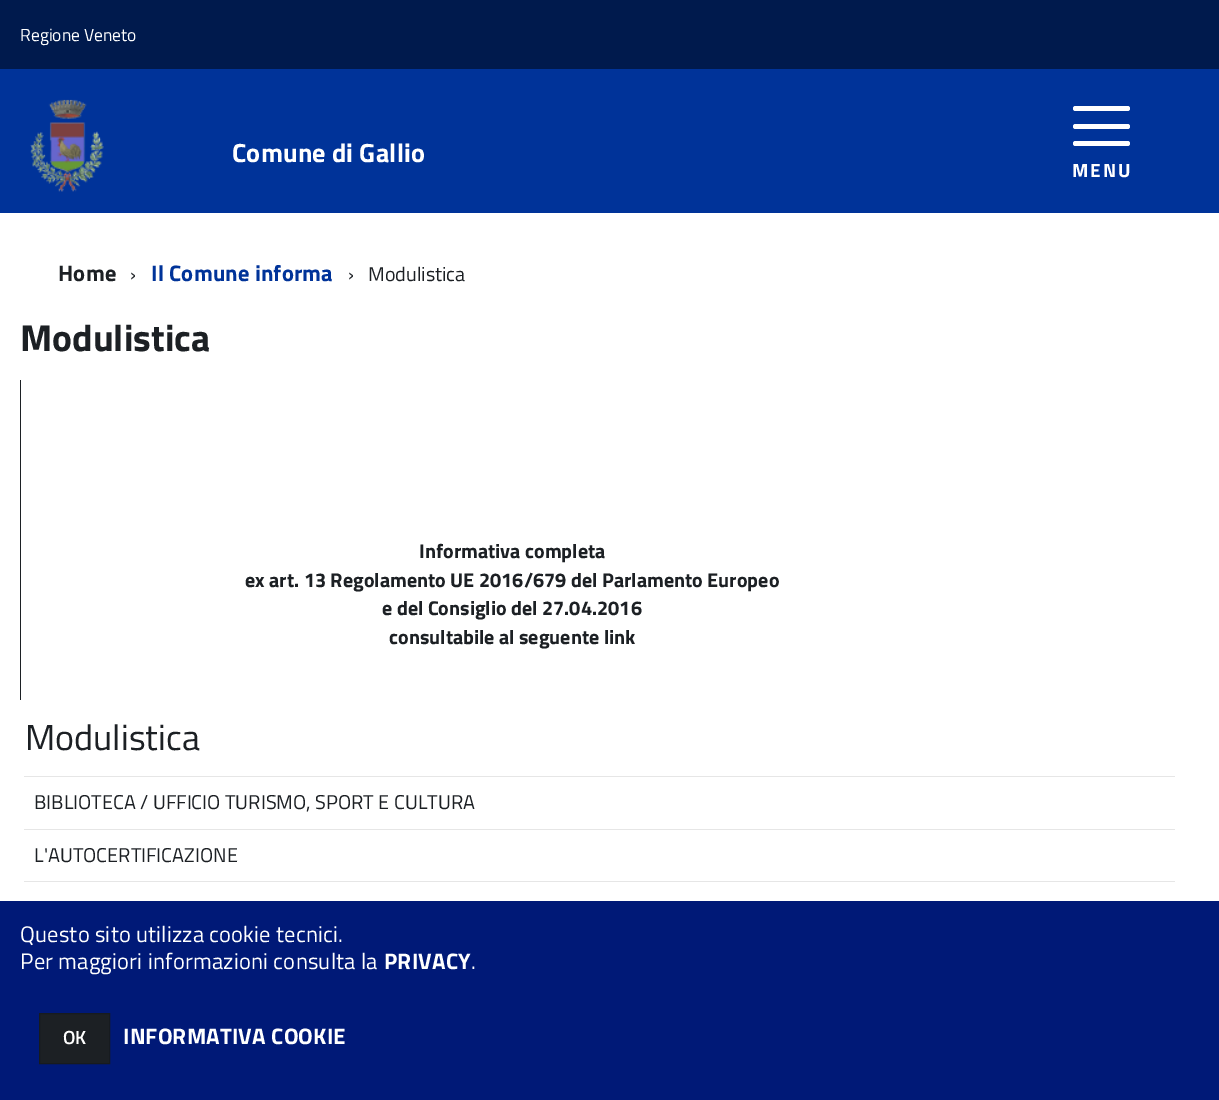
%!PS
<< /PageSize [1219 1100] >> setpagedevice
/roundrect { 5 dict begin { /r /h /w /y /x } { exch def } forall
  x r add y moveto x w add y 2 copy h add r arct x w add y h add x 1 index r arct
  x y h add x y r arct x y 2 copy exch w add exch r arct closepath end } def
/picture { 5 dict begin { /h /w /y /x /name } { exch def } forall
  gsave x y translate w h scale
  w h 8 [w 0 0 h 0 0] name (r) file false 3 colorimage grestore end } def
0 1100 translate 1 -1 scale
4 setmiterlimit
1 setgray
0 0 1219 1100 rectfill
0 0.102 0.302 setrgbcolor
0 0 1219 69 rectfill
/TitilliumWeb-Regular [17.5 0 0 -17.5 0 0] selectfont
1 setgray
20 41 moveto (Regione Veneto) show
0 0.2 0.6 setrgbcolor
0 69 1219 144 rectfill
(img1.rgb) 30 99 74 93 picture
/TitilliumWeb-Bold [26.25 0 0 -26.25 0 0] selectfont
1 setgray
232 162 moveto 0.2 0 (Comune di Gallio) ashow
1073 124 57 5 2.5 roundrect fill
1073 106 57 5 2.5 roundrect fill
1073 141 57 5 2.5 roundrect fill
/TitilliumWeb-Bold [19 0 0 -19 0 0] selectfont
1072 177 moveto 2 0 (MENU) ashow
/TitilliumWeb-Bold [22.5 0 0 -22.5 0 0] selectfont
0.11 0.125 0.141 setrgbcolor
58 281 moveto 0.2 0 (Home) ashow
/TitilliumWeb-Regular [20 0 0 -20 0 0] selectfont
130 281 moveto (›) show
/TitilliumWeb-Bold [22.5 0 0 -22.5 0 0] selectfont
0 0.2 0.6 setrgbcolor
151 281 moveto 0.2 0 (Il Comune informa) ashow
/TitilliumWeb-Regular [20 0 0 -20 0 0] selectfont
0.11 0.125 0.141 setrgbcolor
348 281 moveto (›) show
368 281 moveto (Modulistica) show
/TitilliumWeb-Bold [37.5 0 0 -37.5 0 0] selectfont
20 351 moveto (Modulistica) show
20 380 1 320 rectfill
/TitilliumWeb-Bold [20 0 0 -20 0 0] selectfont
419 558 moveto (Informativa completa) show
245 587 moveto (ex art. 13 Regolamento UE 2016/679 del Parlamento Europeo) show
382 615 moveto (e del Consiglio del 27.04.2016) show
389 644 moveto (consultabile al seguente link) show
/TitilliumWeb-Regular [36 0 0 -36 0 0] selectfont
25 750 moveto (Modulistica) show
0.902 setgray
24 776 1151 1 rectfill
/TitilliumWeb-Regular [20 0 0 -20 0 0] selectfont
0.11 0.125 0.141 setrgbcolor
34 809 moveto (BIBLIOTECA / UFFICIO TURISMO, SPORT E CULTURA) show
0.902 setgray
24 829 1151 1 rectfill
0.11 0.125 0.141 setrgbcolor
34 862 moveto (L'AUTOCERTIFICAZIONE) show
0.902 setgray
24 881 1151 1 rectfill
0 0.098 0.467 setrgbcolor
0 901 1219 199 rectfill
/TitilliumWeb-Regular [22.5 0 0 -22.5 0 0] selectfont
1 setgray
20 942 moveto 0.2 0 (Questo sito utilizza cookie tecnici.) ashow
20 969 moveto 0.2 0 (Per maggiori informazioni consulta la) ashow
/TitilliumWeb-Bold [22.5 0 0 -22.5 0 0] selectfont
384 969 moveto 0.2 0 (PRIVACY) ashow
/TitilliumWeb-Regular [22.5 0 0 -22.5 0 0] selectfont
471 969 moveto 0.2 0 (.) ashow
0.11 0.125 0.141 setrgbcolor
newpath 39.5 1013.5 moveto 109.5 1013.5 lineto 109.5 1063.5 lineto 39.5 1063.5 lineto closepath gsave fill grestore
0.09 0.106 0.122 setrgbcolor
stroke
/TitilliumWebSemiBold-SemiBold [19 0 0 -19 0 0] selectfont
1 setgray
63 1044 moveto (OK) show
/TitilliumWeb-Bold [22.5 0 0 -22.5 0 0] selectfont
123 1044 moveto 0.2 0 (INFORMATIVA COOKIE) ashow
showpage
